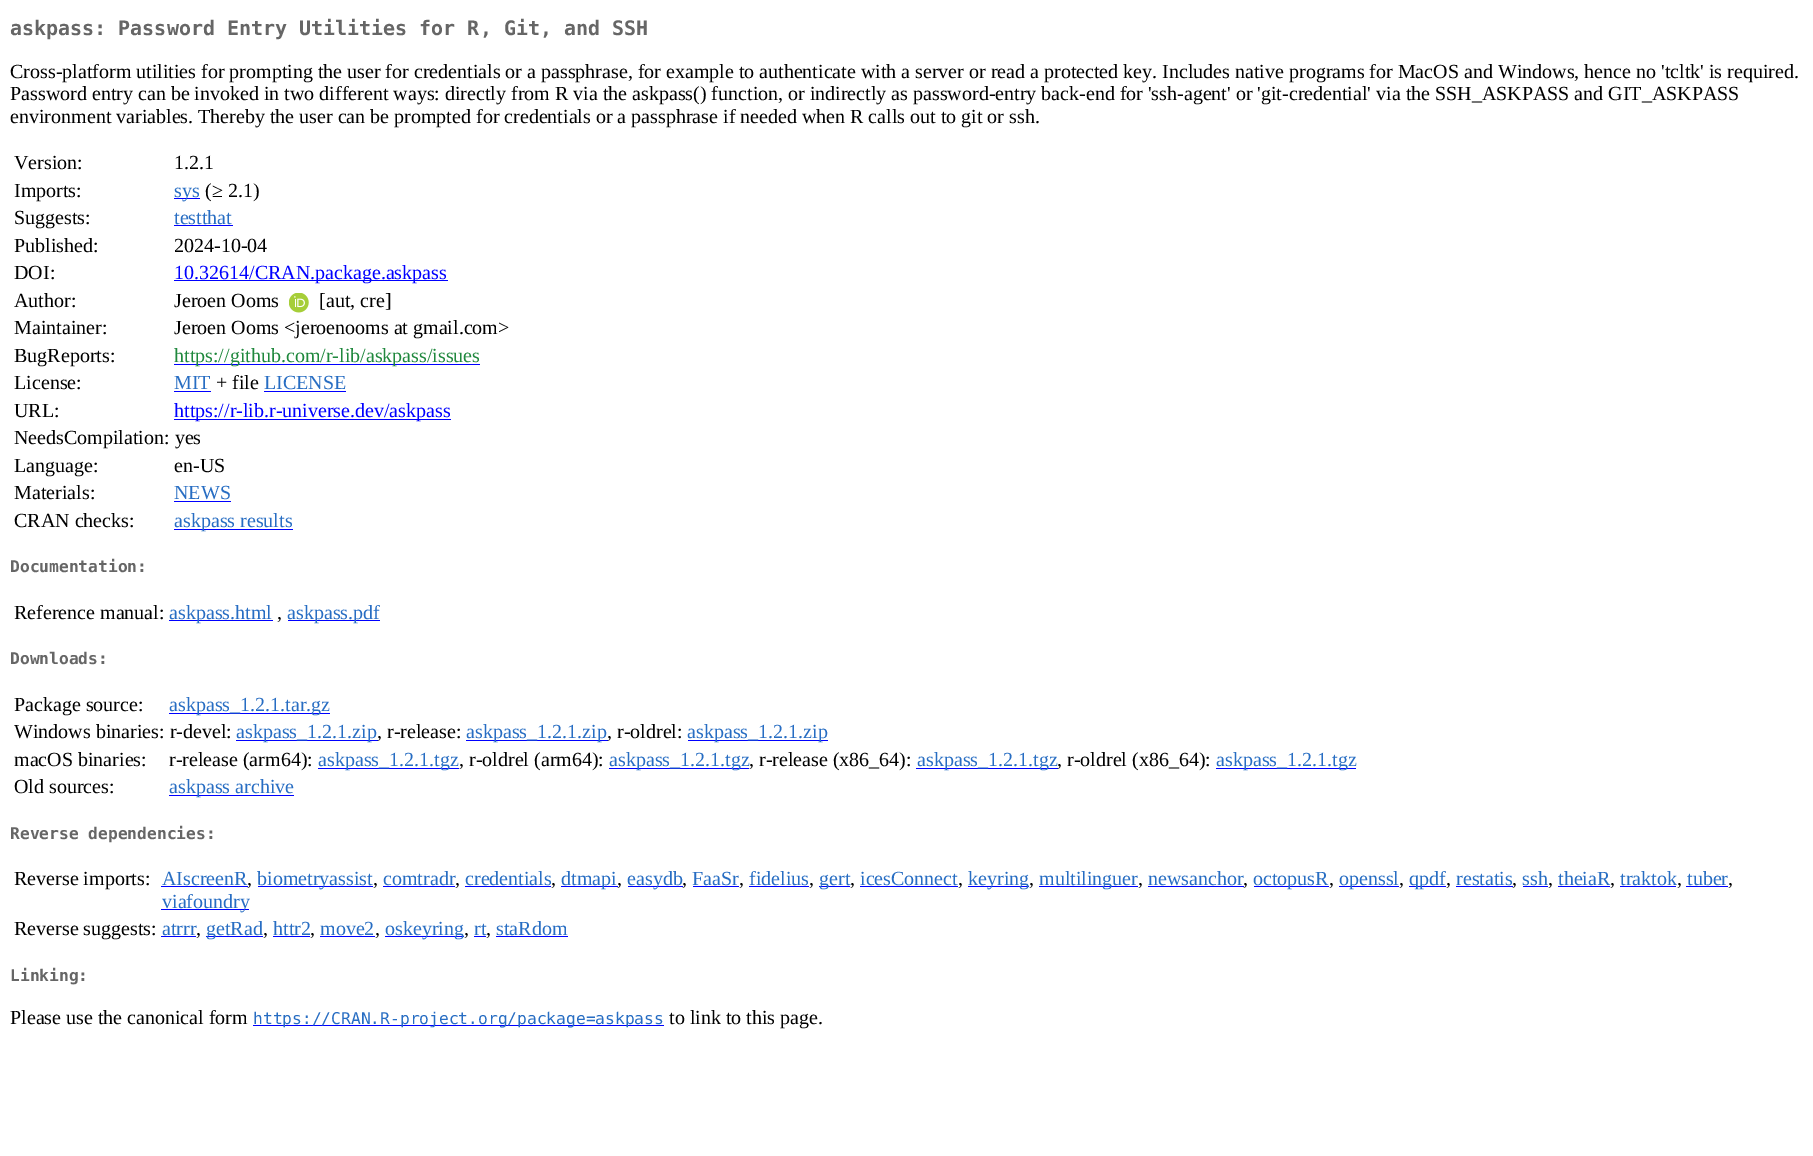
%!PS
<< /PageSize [1813 1156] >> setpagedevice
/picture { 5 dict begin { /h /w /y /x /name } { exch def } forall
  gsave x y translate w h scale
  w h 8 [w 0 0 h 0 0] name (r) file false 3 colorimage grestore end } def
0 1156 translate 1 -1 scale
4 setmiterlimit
1 setgray
0 0 1813 1156 rectfill
/DejaVuSansMono-Bold [20 0 0 -20 0 0] selectfont
0.4 setgray
10 35 moveto (askpass: Password Entry Utilities for R, Git, and SSH) show
/LiberationSerif-Regular [20 0 0 -20 0 0] selectfont
0 setgray
10 78 moveto (Cross-platform utilities for prompting the user for credentials or a passphrase, for example to authenticate with a server or read a protected key. Includes native programs for MacOS and Windows, hence no 'tcltk' is required.) show
10 100 moveto (Password entry can be invoked in two different ways: directly from R via the askpass\(\) function, or indirectly as password-entry back-end for 'ssh-agent' or 'git-credential' via the SSH_ASKPASS and GIT_ASKPASS) show
10 123 moveto (environment variables. Thereby the user can be prompted for credentials or a passphrase if needed when R calls out to git or ssh.) show
14 169 moveto (Version:) show
174 169 moveto (1.2.1) show
14 197 moveto (Imports:) show
0 0 1 setrgbcolor
174 198 26 1 rectfill
0.153 0.427 0.765 setrgbcolor
174 197 moveto (sys) show
0 setgray
205 197 moveto (\(≥ 2.1\)) show
14 224 moveto (Suggests:) show
0.153 0.427 0.765 setrgbcolor
174 224 moveto (testthat) show
0 0 1 setrgbcolor
174 225 59 1 rectfill
0 setgray
14 252 moveto (Published:) show
174 252 moveto (2024-10-04) show
14 279 moveto (DOI:) show
0 0 1 setrgbcolor
174 280 274 1 rectfill
174 279 moveto (10.32614/CRAN.package.askpass) show
0 setgray
14 307 moveto (Author:) show
174 307 moveto (Jeroen Ooms) show
(img1.rgb) 289 293 20 20 picture
319 307 moveto ([aut, cre]) show
14 334 moveto (Maintainer:) show
174 334 moveto (Jeroen Ooms <jeroenooms at gmail.com>) show
14 362 moveto (BugReports:) show
0 0 1 setrgbcolor
174 364 306 1 rectfill
0.122 0.533 0.239 setrgbcolor
174 362 moveto (https://github.com/r-lib/askpass/issues) show
0 setgray
14 389 moveto (License:) show
0.153 0.427 0.765 setrgbcolor
174 389 moveto (MIT) show
0 0 1 setrgbcolor
174 391 37 1 rectfill
0 setgray
216 389 moveto (+ file) show
0.153 0.427 0.765 setrgbcolor
264 389 moveto (LICENSE) show
0 0 1 setrgbcolor
264 391 82 1 rectfill
0 setgray
14 417 moveto (URL:) show
0 0 1 setrgbcolor
174 419 277 1 rectfill
174 417 moveto (https://r-lib.r-universe.dev/askpass) show
0 setgray
14 444 moveto (NeedsCompilation: yes) show
14 472 moveto (Language:) show
174 472 moveto (en-US) show
14 499 moveto (Materials:) show
0.153 0.427 0.765 setrgbcolor
174 499 moveto (NEWS) show
0 0 1 setrgbcolor
174 501 57 1 rectfill
0 setgray
14 527 moveto (CRAN checks:) show
0 0 1 setrgbcolor
174 529 119 1 rectfill
0.153 0.427 0.765 setrgbcolor
174 527 moveto (askpass results) show
/DejaVuSansMono-Bold [16.25 0 0 -16.25 0 0] selectfont
0.4 setgray
10 572 moveto (Documentation:) show
/LiberationSerif-Regular [20 0 0 -20 0 0] selectfont
0 setgray
14 619 moveto (Reference manual:) show
0 0 1 setrgbcolor
169 620 104 1 rectfill
0.153 0.427 0.765 setrgbcolor
169 619 moveto (askpass.html) show
0 setgray
277 619 moveto (,) show
0 0 1 setrgbcolor
288 620 92 1 rectfill
0.153 0.427 0.765 setrgbcolor
287 619 moveto (askpass.pdf) show
/DejaVuSansMono-Bold [16.25 0 0 -16.25 0 0] selectfont
0.4 setgray
10 664 moveto (Downloads:) show
/LiberationSerif-Regular [20 0 0 -20 0 0] selectfont
0 setgray
14 711 moveto (Package source:) show
0 0 1 setrgbcolor
169 713 161 1 rectfill
0.153 0.427 0.765 setrgbcolor
169 711 moveto (askpass_1.2.1.tar.gz) show
0 setgray
14 738 moveto (Windows binaries: r-devel:) show
0 0 1 setrgbcolor
236 740 142 1 rectfill
0.153 0.427 0.765 setrgbcolor
236 738 moveto (askpass_1.2.1.zip) show
0 setgray
377 738 moveto (, r-release:) show
0 0 1 setrgbcolor
466 740 142 1 rectfill
0.153 0.427 0.765 setrgbcolor
466 738 moveto (askpass_1.2.1.zip) show
0 setgray
607 738 moveto (, r-oldrel:) show
0 0 1 setrgbcolor
688 740 140 1 rectfill
0.153 0.427 0.765 setrgbcolor
687 738 moveto (askpass_1.2.1.zip) show
0 setgray
14 766 moveto (macOS binaries:) show
169 766 moveto (r-release \(arm64\):) show
0 0 1 setrgbcolor
318 768 141 1 rectfill
0.153 0.427 0.765 setrgbcolor
318 766 moveto (askpass_1.2.1.tgz) show
0 setgray
459 766 moveto (, r-oldrel \(arm64\):) show
0 0 1 setrgbcolor
609 768 140 1 rectfill
0.153 0.427 0.765 setrgbcolor
609 766 moveto (askpass_1.2.1.tgz) show
0 setgray
749 766 moveto (, r-release \(x86_64\):) show
0 0 1 setrgbcolor
916 768 142 1 rectfill
0.153 0.427 0.765 setrgbcolor
917 766 moveto (askpass_1.2.1.tgz) show
0 setgray
1057 766 moveto (, r-oldrel \(x86_64\):) show
0 0 1 setrgbcolor
1216 768 140 1 rectfill
0.153 0.427 0.765 setrgbcolor
1216 766 moveto (askpass_1.2.1.tgz) show
0 setgray
14 793 moveto (Old sources:) show
0 0 1 setrgbcolor
169 795 125 1 rectfill
0.153 0.427 0.765 setrgbcolor
169 793 moveto (askpass archive) show
/DejaVuSansMono-Bold [16.25 0 0 -16.25 0 0] selectfont
0.4 setgray
10 839 moveto (Reverse dependencies:) show
/LiberationSerif-Regular [20 0 0 -20 0 0] selectfont
0 setgray
14 885 moveto (Reverse imports:) show
0.153 0.427 0.765 setrgbcolor
162 885 moveto (AIscreenR) show
0 0 1 setrgbcolor
161 886 87 1 rectfill
0 setgray
247 885 moveto (,) show
0 0 1 setrgbcolor
258 886 115 1 rectfill
0.153 0.427 0.765 setrgbcolor
257 885 moveto (biometryassist) show
0 setgray
373 885 moveto (,) show
0.153 0.427 0.765 setrgbcolor
383 885 moveto (comtradr) show
0 0 1 setrgbcolor
383 886 72 1 rectfill
0 setgray
455 885 moveto (,) show
0.153 0.427 0.765 setrgbcolor
465 885 moveto (credentials) show
0 0 1 setrgbcolor
465 886 86 1 rectfill
0 setgray
551 885 moveto (,) show
0 0 1 setrgbcolor
561 886 57 1 rectfill
0.153 0.427 0.765 setrgbcolor
561 885 moveto (dtmapi) show
0 setgray
617 885 moveto (,) show
0 0 1 setrgbcolor
628 886 55 1 rectfill
0.153 0.427 0.765 setrgbcolor
627 885 moveto (easydb) show
0 setgray
682 885 moveto (,) show
0.153 0.427 0.765 setrgbcolor
692 885 moveto (FaaSr) show
0 0 1 setrgbcolor
693 886 46 1 rectfill
0 setgray
739 885 moveto (,) show
0.153 0.427 0.765 setrgbcolor
749 885 moveto (fidelius) show
0 0 1 setrgbcolor
749 886 60 1 rectfill
0 setgray
809 885 moveto (,) show
0 0 1 setrgbcolor
819 886 31 1 rectfill
0.153 0.427 0.765 setrgbcolor
819 885 moveto (gert) show
0 setgray
850 885 moveto (,) show
0.153 0.427 0.765 setrgbcolor
860 885 moveto (icesConnect) show
0 0 1 setrgbcolor
860 886 98 1 rectfill
0 setgray
958 885 moveto (,) show
0 0 1 setrgbcolor
968 886 61 1 rectfill
0.153 0.427 0.765 setrgbcolor
968 885 moveto (keyring) show
0 setgray
1029 885 moveto (,) show
0 0 1 setrgbcolor
1039 886 99 1 rectfill
0.153 0.427 0.765 setrgbcolor
1039 885 moveto (multilinguer) show
0 setgray
1138 885 moveto (,) show
0.153 0.427 0.765 setrgbcolor
1148 885 moveto (newsanchor) show
0 0 1 setrgbcolor
1148 886 96 1 rectfill
0 setgray
1243 885 moveto (,) show
0 0 1 setrgbcolor
1254 886 75 1 rectfill
0.153 0.427 0.765 setrgbcolor
1253 885 moveto (octopusR) show
0 setgray
1329 885 moveto (,) show
0 0 1 setrgbcolor
1339 886 60 1 rectfill
0.153 0.427 0.765 setrgbcolor
1339 885 moveto (openssl) show
0 setgray
1399 885 moveto (,) show
0 0 1 setrgbcolor
1409 886 37 1 rectfill
0.153 0.427 0.765 setrgbcolor
1409 885 moveto (qpdf) show
0 setgray
1446 885 moveto (,) show
0.153 0.427 0.765 setrgbcolor
1456 885 moveto (restatis) show
0 0 1 setrgbcolor
1456 886 57 1 rectfill
0 setgray
1512 885 moveto (,) show
0.153 0.427 0.765 setrgbcolor
1522 885 moveto (ssh) show
0 0 1 setrgbcolor
1523 886 25 1 rectfill
0 setgray
1548 885 moveto (,) show
0.153 0.427 0.765 setrgbcolor
1558 885 moveto (theiaR) show
0 0 1 setrgbcolor
1558 886 52 1 rectfill
0 setgray
1610 885 moveto (,) show
0.153 0.427 0.765 setrgbcolor
1620 885 moveto (traktok) show
0 0 1 setrgbcolor
1620 886 56 1 rectfill
0 setgray
1677 885 moveto (,) show
0.153 0.427 0.765 setrgbcolor
1687 885 moveto (tuber) show
0 0 1 setrgbcolor
1686 886 42 1 rectfill
0 setgray
1728 885 moveto (,) show
0 0 1 setrgbcolor
161 909 88 1 rectfill
0.153 0.427 0.765 setrgbcolor
162 908 moveto (viafoundry) show
0 setgray
14 935 moveto (Reverse suggests:) show
0.153 0.427 0.765 setrgbcolor
162 935 moveto (atrrr) show
0 0 1 setrgbcolor
161 936 35 1 rectfill
0 setgray
196 935 moveto (,) show
0 0 1 setrgbcolor
206 936 57 1 rectfill
0.153 0.427 0.765 setrgbcolor
206 935 moveto (getRad) show
0 setgray
263 935 moveto (,) show
0.153 0.427 0.765 setrgbcolor
273 935 moveto (httr2) show
0 0 1 setrgbcolor
273 936 37 1 rectfill
0 setgray
310 935 moveto (,) show
0.153 0.427 0.765 setrgbcolor
320 935 moveto (move2) show
0 0 1 setrgbcolor
320 936 55 1 rectfill
0 setgray
375 935 moveto (,) show
0 0 1 setrgbcolor
385 936 79 1 rectfill
0.153 0.427 0.765 setrgbcolor
385 935 moveto (oskeyring) show
0 setgray
464 935 moveto (,) show
0.153 0.427 0.765 setrgbcolor
474 935 moveto (rt) show
0 0 1 setrgbcolor
474 936 12 1 rectfill
0 setgray
486 935 moveto (,) show
0.153 0.427 0.765 setrgbcolor
496 935 moveto (staRdom) show
0 0 1 setrgbcolor
496 936 72 1 rectfill
/DejaVuSansMono-Bold [16.25 0 0 -16.25 0 0] selectfont
0.4 setgray
10 981 moveto (Linking:) show
/LiberationSerif-Regular [20 0 0 -20 0 0] selectfont
0 setgray
10 1024 moveto (Please use the canonical form) show
0 0 1 setrgbcolor
253 1025 411 1 rectfill
/DejaVuSansMono-Regular [16.25 0 0 -16.25 0 0] selectfont
0.153 0.427 0.765 setrgbcolor
253 1024 moveto (https://CRAN.R-project.org/package=askpass) show
/LiberationSerif-Regular [20 0 0 -20 0 0] selectfont
0 setgray
669 1024 moveto (to link to this page.) show
showpage
